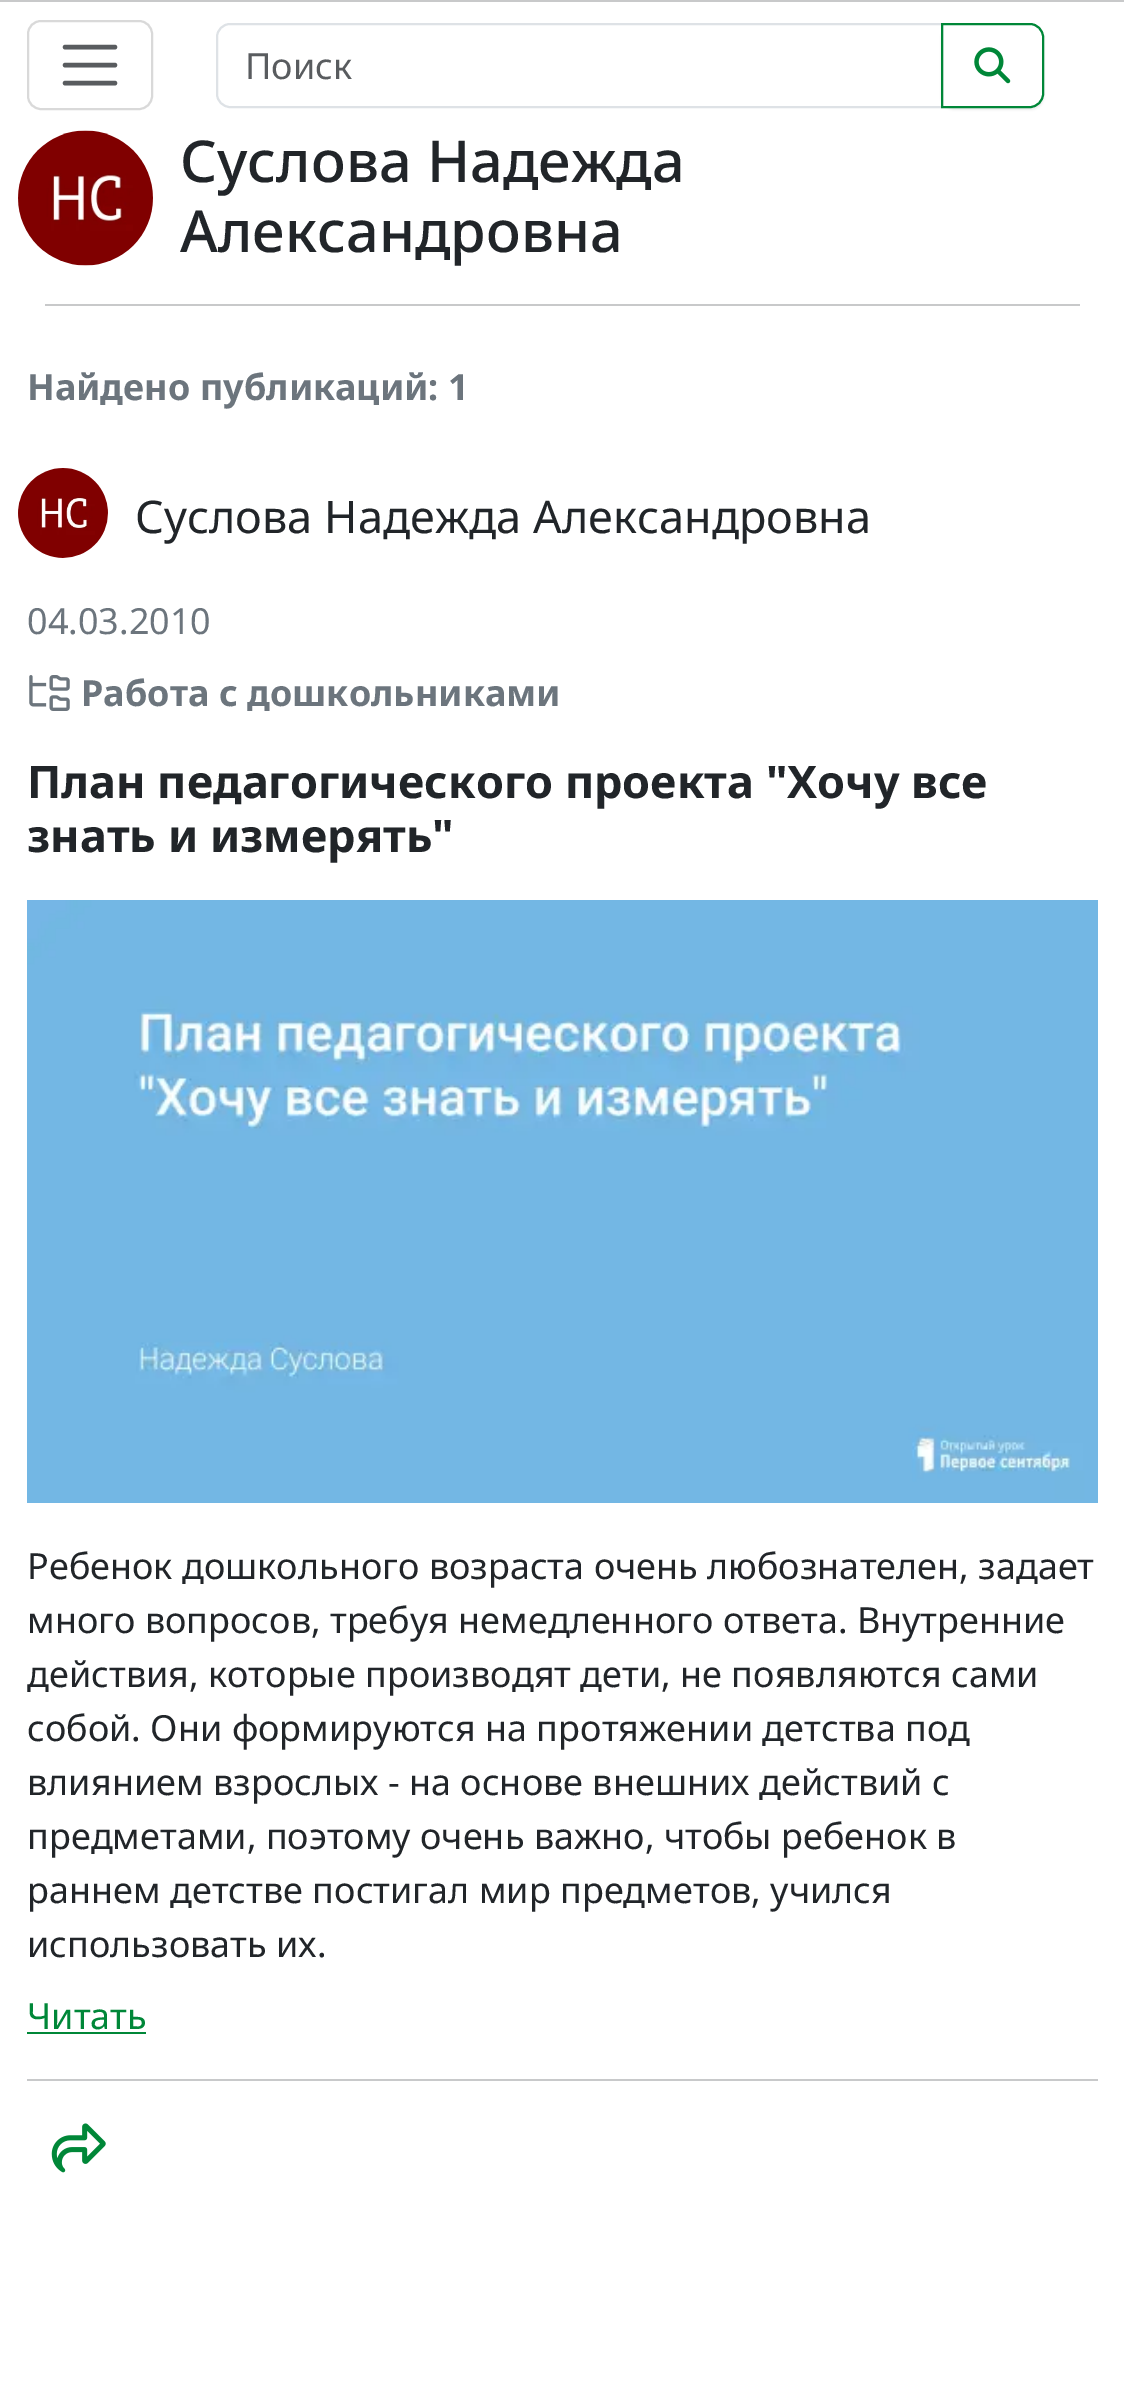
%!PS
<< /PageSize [1124 2382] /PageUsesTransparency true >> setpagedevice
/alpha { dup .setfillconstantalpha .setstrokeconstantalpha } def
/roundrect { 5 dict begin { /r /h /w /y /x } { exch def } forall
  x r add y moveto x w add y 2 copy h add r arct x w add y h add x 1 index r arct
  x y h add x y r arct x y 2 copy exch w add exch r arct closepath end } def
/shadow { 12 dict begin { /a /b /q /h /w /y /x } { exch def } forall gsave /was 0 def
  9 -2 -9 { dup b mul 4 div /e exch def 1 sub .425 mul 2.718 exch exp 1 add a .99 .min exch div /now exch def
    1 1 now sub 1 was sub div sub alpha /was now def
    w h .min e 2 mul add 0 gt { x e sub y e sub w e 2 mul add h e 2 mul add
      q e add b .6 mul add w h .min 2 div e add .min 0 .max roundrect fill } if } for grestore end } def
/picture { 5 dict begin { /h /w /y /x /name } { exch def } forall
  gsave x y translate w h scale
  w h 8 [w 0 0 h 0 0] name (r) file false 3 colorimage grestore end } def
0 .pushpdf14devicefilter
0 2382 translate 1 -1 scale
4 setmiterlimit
1 setgray
0 0 1124 2382 rectfill
0.784 0.788 0.792 setrgbcolor
0 0 1124 2 rectfill
0.851 setgray
2 setlinewidth
28 21 124 88 13 roundrect stroke
0.349 0.361 0.373 setrgbcolor
4.5 setlinewidth
1 setlinecap
newpath 65 47 moveto 115 47 lineto 65 65 moveto 115 65 lineto 65 83 moveto 115 83 lineto stroke
0.871 0.886 0.902 setrgbcolor
2 setlinewidth
0 setlinecap
newpath 230 24 moveto 942 24 lineto 942 107 lineto 230 107 lineto 223 107 217 101 217 94 curveto 217 37 lineto 217 30 223 24 230 24 curveto closepath stroke
/NotoSans-Regular [36 0 0 -36 0 0] selectfont
0.349 0.361 0.373 setrgbcolor
245 79 moveto (Поиск) show
gsave
newpath 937 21 moveto 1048 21 lineto 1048 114 lineto 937 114 lineto closepath 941 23 moveto 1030 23 lineto 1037.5 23 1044 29.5 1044 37 curveto 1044 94 lineto 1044 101.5 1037.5 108 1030 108 curveto 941 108 lineto closepath eoclip newpath
0 setgray
941 25 103 85 14 1 0.07 shadow
grestore
0 0.529 0.22 setrgbcolor
newpath 942 24 moveto 1030 24 lineto 1037 24 1043 30 1043 37 curveto 1043 94 lineto 1043 101 1037 107 1030 107 curveto 942 107 lineto closepath stroke
(img1.rgb) 974 47 37 37 picture
(img2.rgb) 18 130 135 136 picture
/NotoSans-Medium [57.75 0 0 -57.75 0 0] selectfont
0.129 0.145 0.161 setrgbcolor
180 182 moveto (Суслова Надежда) show
180 252 moveto (Александровна) show
0.784 0.788 0.792 setrgbcolor
45 304 1035 2 rectfill
/NotoSans-Bold [36 0 0 -36 0 0] selectfont
0.424 0.459 0.49 setrgbcolor
27 400 moveto (Найдено публикаций: 1) show
(img3.rgb) 18 468 90 90 picture
/NotoSans-Regular [45 0 0 -45 0 0] selectfont
0.129 0.145 0.161 setrgbcolor
135 533 moveto (Суслова Надежда Александровна) show
/NotoSans-Regular [36 0 0 -36 0 0] selectfont
0.424 0.459 0.49 setrgbcolor
27 634 moveto (04.03.2010) show
(img4.rgb) 29 675 41 36 picture
/NotoSans-Bold [36 0 0 -36 0 0] selectfont
81 706 moveto (Работа с дошкольниками) show
/NotoSans-Bold [45 0 0 -45 0 0] selectfont
0.129 0.145 0.161 setrgbcolor
27 798 moveto (План педагогического проекта "Хочу все) show
27 852 moveto (знать и измерять") show
(img5.rgb) 27 900 1071 603 picture
/NotoSans-Regular [36 0 0 -36 0 0] selectfont
27 1579 moveto (Ребенок дошкольного возраста очень любознателен, задает) show
27 1633 moveto (много вопросов, требуя немедленного ответа. Внутренние) show
27 1687 moveto (действия, которые производят дети, не появляются сами) show
27 1741 moveto (собой. Они формируются на протяжении детства под) show
27 1795 moveto (влиянием взрослых - на основе внешних действий с) show
27 1849 moveto (предметами, поэтому очень важно, чтобы ребенок в) show
27 1903 moveto (раннем детстве постигал мир предметов, учился) show
27 1957 moveto (использовать их.) show
0 0.529 0.22 setrgbcolor
27 2029 moveto (Читать) show
27 2032 119 2 rectfill
0.784 0.788 0.792 setrgbcolor
27 2079 1071 2 rectfill
(img6.rgb) 51 2123 55 50 picture
.poppdf14devicefilter showpage
